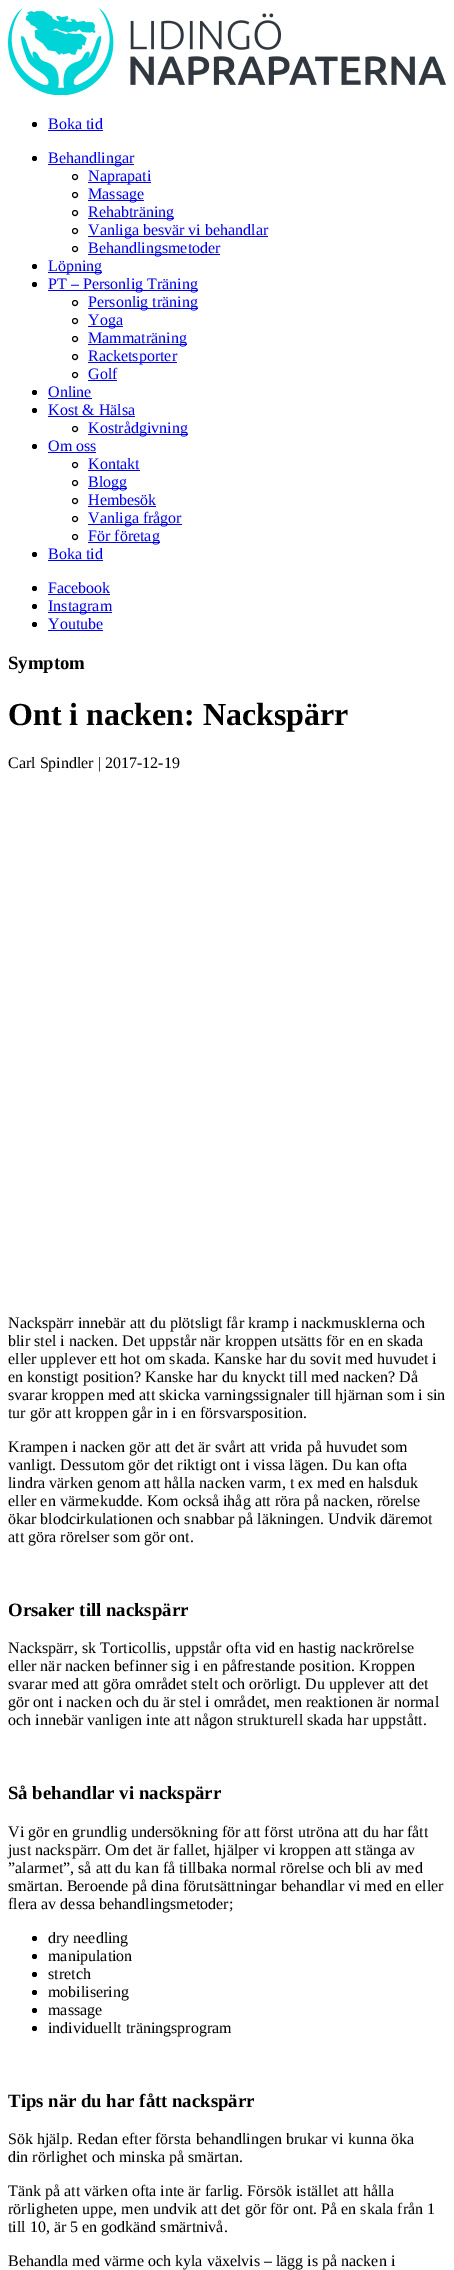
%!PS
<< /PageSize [454 2270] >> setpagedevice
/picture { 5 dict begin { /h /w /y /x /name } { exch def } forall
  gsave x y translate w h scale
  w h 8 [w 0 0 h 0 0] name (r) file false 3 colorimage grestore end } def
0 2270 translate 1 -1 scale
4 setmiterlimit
1 setgray
0 0 454 2270 rectfill
(img1.rgb) 8 8 438 87 picture
0 setgray
newpath 34.5 124.5 2.5 0 360 arc closepath fill
/LiberationSerif-Regular [16 0 0 -16 0 0] selectfont
0 0 0.933 setrgbcolor
48 129 moveto (Boka tid) show
48 130 55 1 rectfill
0 setgray
newpath 34.5 158.5 2.5 0 360 arc closepath fill
0 0 0.933 setrgbcolor
48 164 86 1 rectfill
48 163 moveto (Behandlingar) show
0 setgray
newpath 75 177 2.5 0 360 arc closepath stroke
0 0 0.933 setrgbcolor
88 182 63 1 rectfill
88 181 moveto (Naprapati) show
0 setgray
newpath 75 195 2.5 0 360 arc closepath stroke
0 0 0.933 setrgbcolor
88 200 56 1 rectfill
88 199 moveto (Massage) show
0 setgray
newpath 75 213 2.5 0 360 arc closepath stroke
0 0 0.933 setrgbcolor
88 218 86 1 rectfill
88 217 moveto (Rehabträning) show
0 setgray
newpath 75 231 2.5 0 360 arc closepath stroke
0 0 0.933 setrgbcolor
88 236 180 1 rectfill
88 235 moveto (Vanliga besvär vi behandlar) show
0 setgray
newpath 75 249 2.5 0 360 arc closepath stroke
0 0 0.933 setrgbcolor
88 254 132 1 rectfill
88 253 moveto (Behandlingsmetoder) show
0 setgray
newpath 34.5 266.5 2.5 0 360 arc closepath fill
0 0 0.933 setrgbcolor
48 272 54 1 rectfill
48 271 moveto (Löpning) show
0 setgray
newpath 34.5 284.5 2.5 0 360 arc closepath fill
0 0 0.933 setrgbcolor
48 290 150 1 rectfill
48 289 moveto (PT – Personlig Träning) show
0 setgray
newpath 75 303 2.5 0 360 arc closepath stroke
0 0 0.933 setrgbcolor
88 308 110 1 rectfill
88 307 moveto (Personlig träning) show
0 setgray
newpath 75 321 2.5 0 360 arc closepath stroke
0 0 0.933 setrgbcolor
88 326 35 1 rectfill
88 325 moveto (Yoga) show
0 setgray
newpath 75 339 2.5 0 360 arc closepath stroke
0 0 0.933 setrgbcolor
88 344 99 1 rectfill
88 343 moveto (Mammaträning) show
0 setgray
newpath 75 357 2.5 0 360 arc closepath stroke
0 0 0.933 setrgbcolor
88 362 89 1 rectfill
88 361 moveto (Racketsporter) show
0 setgray
newpath 75 375 2.5 0 360 arc closepath stroke
0 0 0.933 setrgbcolor
88 379 moveto (Golf) show
88 380 29 1 rectfill
0 setgray
newpath 34.5 392.5 2.5 0 360 arc closepath fill
0 0 0.933 setrgbcolor
48 397 moveto (Online) show
48 398 44 1 rectfill
0 setgray
newpath 34.5 410.5 2.5 0 360 arc closepath fill
0 0 0.933 setrgbcolor
48 415 moveto (Kost & Hälsa) show
48 416 87 1 rectfill
0 setgray
newpath 75 429 2.5 0 360 arc closepath stroke
0 0 0.933 setrgbcolor
88 434 100 1 rectfill
88 433 moveto (Kostrådgivning) show
0 setgray
newpath 34.5 446.5 2.5 0 360 arc closepath fill
0 0 0.933 setrgbcolor
48 451 moveto (Om oss) show
48 452 48 1 rectfill
0 setgray
newpath 75 465 2.5 0 360 arc closepath stroke
0 0 0.933 setrgbcolor
88 469 moveto (Kontakt) show
88 470 52 1 rectfill
0 setgray
newpath 75 483 2.5 0 360 arc closepath stroke
0 0 0.933 setrgbcolor
88 488 39 1 rectfill
88 487 moveto (Blogg) show
0 setgray
newpath 75 501 2.5 0 360 arc closepath stroke
0 0 0.933 setrgbcolor
88 505 moveto (Hembesök) show
88 506 68 1 rectfill
0 setgray
newpath 75 519 2.5 0 360 arc closepath stroke
0 0 0.933 setrgbcolor
88 524 94 1 rectfill
88 523 moveto (Vanliga frågor) show
0 setgray
newpath 75 537 2.5 0 360 arc closepath stroke
0 0 0.933 setrgbcolor
88 542 72 1 rectfill
88 541 moveto (För företag) show
0 setgray
newpath 34.5 554.5 2.5 0 360 arc closepath fill
0 0 0.933 setrgbcolor
48 559 moveto (Boka tid) show
48 560 55 1 rectfill
0 setgray
newpath 34.5 588.5 2.5 0 360 arc closepath fill
0 0 0.933 setrgbcolor
48 593 moveto (Facebook) show
48 594 62 1 rectfill
0 setgray
newpath 34.5 606.5 2.5 0 360 arc closepath fill
0 0 0.933 setrgbcolor
48 612 64 1 rectfill
48 611 moveto (Instagram) show
0 setgray
newpath 34.5 624.5 2.5 0 360 arc closepath fill
0 0 0.933 setrgbcolor
48 629 moveto (Youtube) show
48 630 55 1 rectfill
/LiberationSerif-Bold [18.75 0 0 -18.75 0 0] selectfont
0 setgray
8 669 moveto (Symptom) show
/LiberationSerif-Bold [32 0 0 -32 0 0] selectfont
8 725 moveto (Ont i nacken: Nackspärr) show
/LiberationSerif-Regular [16 0 0 -16 0 0] selectfont
8 768 moveto (Carl Spindler | 2017-12-19) show
8 1328 moveto (Nackspärr innebär att du plötsligt får kramp i nackmusklerna och) show
8 1346 moveto (blir stel i nacken. Det uppstår när kroppen utsätts för en en skada) show
8 1364 moveto (eller upplever ett hot om skada. Kanske har du sovit med huvudet i) show
8 1382 moveto (en konstigt position? Kanske har du knyckt till med nacken? Då) show
8 1400 moveto (svarar kroppen med att skicka varningssignaler till hjärnan som i sin) show
8 1418 moveto (tur gör att kroppen går in i en försvarsposition.) show
8 1452 moveto (Krampen i nacken gör att det är svårt att vrida på huvudet som) show
8 1470 moveto (vanligt. Dessutom gör det riktigt ont i vissa lägen. Du kan ofta) show
8 1488 moveto (lindra värken genom att hålla nacken varm, t ex med en halsduk) show
8 1506 moveto (eller en värmekudde. Kom också ihåg att röra på nacken, rörelse) show
8 1524 moveto (ökar blodcirkulationen och snabbar på läkningen. Undvik däremot) show
8 1542 moveto (att göra rörelser som gör ont.) show
/LiberationSerif-Bold [18.75 0 0 -18.75 0 0] selectfont
8 1616 moveto (Orsaker till nackspärr) show
/LiberationSerif-Regular [16 0 0 -16 0 0] selectfont
8 1653 moveto (Nackspärr, sk Torticollis, uppstår ofta vid en hastig nackrörelse) show
8 1671 moveto (eller när nacken befinner sig i en påfrestande position. Kroppen) show
8 1689 moveto (svarar med att göra området stelt och orörligt. Du upplever att det) show
8 1707 moveto (gör ont i nacken och du är stel i området, men reaktionen är normal) show
8 1725 moveto (och innebär vanligen inte att någon strukturell skada har uppstått.) show
/LiberationSerif-Bold [18.75 0 0 -18.75 0 0] selectfont
8 1799 moveto (Så behandlar vi nackspärr) show
/LiberationSerif-Regular [16 0 0 -16 0 0] selectfont
8 1837 moveto (Vi gör en grundlig undersökning för att först utröna att du har fått) show
8 1855 moveto (just nackspärr. Om det är fallet, hjälper vi kroppen att stänga av) show
8 1873 moveto (”alarmet”, så att du kan få tillbaka normal rörelse och bli av med) show
8 1891 moveto (smärtan. Beroende på dina förutsättningar behandlar vi med en eller) show
8 1909 moveto (flera av dessa behandlingsmetoder;) show
newpath 34.5 1938.5 2.5 0 360 arc closepath fill
48 1943 moveto (dry needling) show
newpath 34.5 1956.5 2.5 0 360 arc closepath fill
48 1961 moveto (manipulation) show
newpath 34.5 1974.5 2.5 0 360 arc closepath fill
48 1979 moveto (stretch) show
newpath 34.5 1992.5 2.5 0 360 arc closepath fill
48 1997 moveto (mobilisering) show
newpath 34.5 2010.5 2.5 0 360 arc closepath fill
48 2015 moveto (massage) show
newpath 34.5 2028.5 2.5 0 360 arc closepath fill
48 2033 moveto (individuellt träningsprogram) show
/LiberationSerif-Bold [18.75 0 0 -18.75 0 0] selectfont
8 2107 moveto (Tips när du har fått nackspärr) show
/LiberationSerif-Regular [16 0 0 -16 0 0] selectfont
8 2144 moveto (Sök hjälp. Redan efter första behandlingen brukar vi kunna öka) show
8 2162 moveto (din rörlighet och minska på smärtan.) show
8 2196 moveto (Tänk på att värken ofta inte är farlig. Försök istället att hålla) show
8 2214 moveto (rörligheten uppe, men undvik att det gör för ont. På en skala från 1) show
8 2232 moveto (till 10, är 5 en godkänd smärtnivå.) show
8 2266 moveto (Behandla med värme och kyla växelvis – lägg is på nacken i) show
showpage
